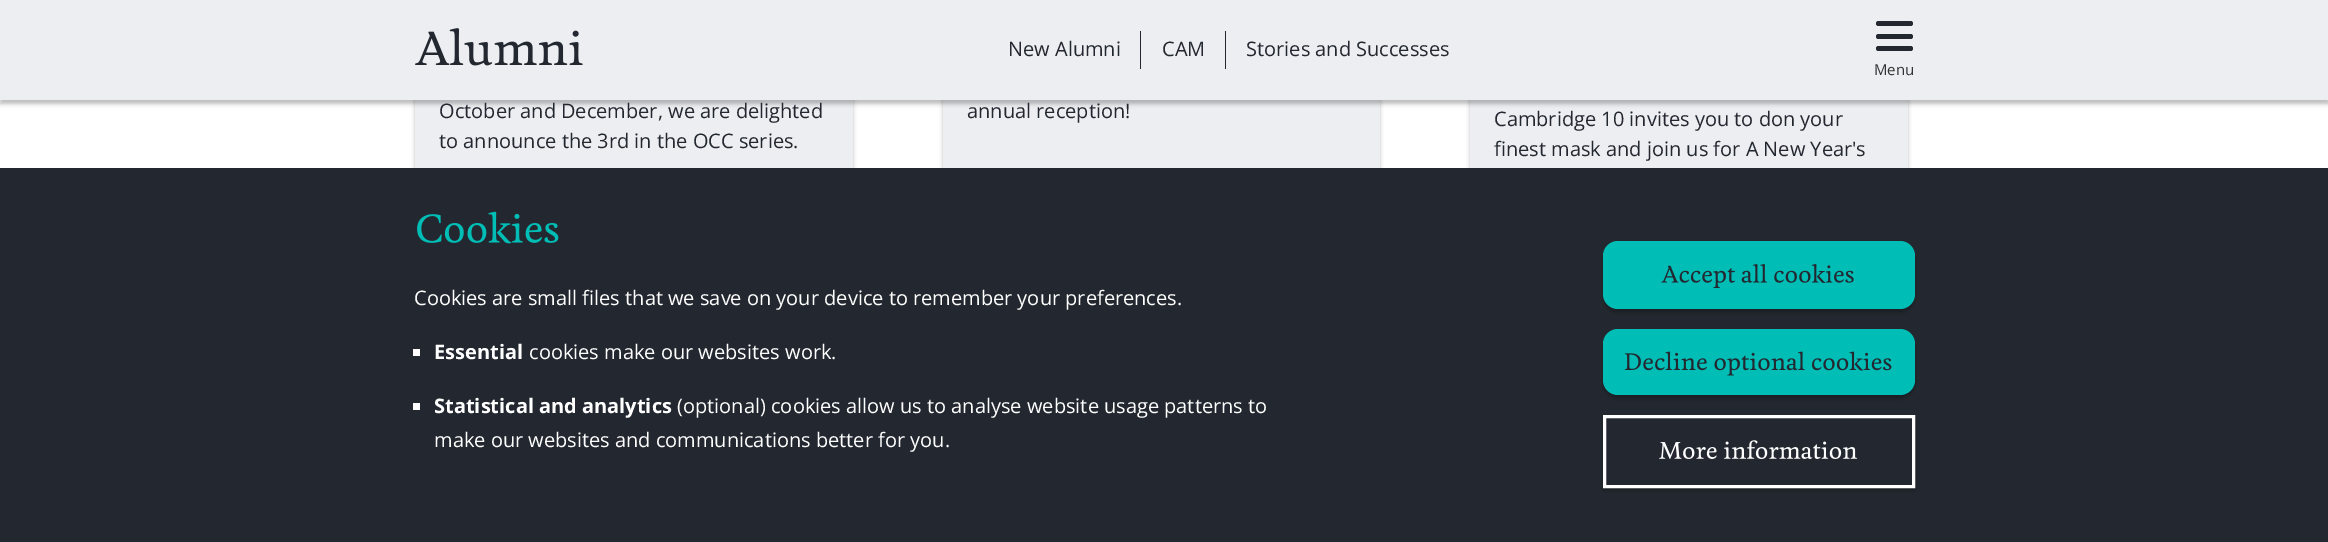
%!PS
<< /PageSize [2328 542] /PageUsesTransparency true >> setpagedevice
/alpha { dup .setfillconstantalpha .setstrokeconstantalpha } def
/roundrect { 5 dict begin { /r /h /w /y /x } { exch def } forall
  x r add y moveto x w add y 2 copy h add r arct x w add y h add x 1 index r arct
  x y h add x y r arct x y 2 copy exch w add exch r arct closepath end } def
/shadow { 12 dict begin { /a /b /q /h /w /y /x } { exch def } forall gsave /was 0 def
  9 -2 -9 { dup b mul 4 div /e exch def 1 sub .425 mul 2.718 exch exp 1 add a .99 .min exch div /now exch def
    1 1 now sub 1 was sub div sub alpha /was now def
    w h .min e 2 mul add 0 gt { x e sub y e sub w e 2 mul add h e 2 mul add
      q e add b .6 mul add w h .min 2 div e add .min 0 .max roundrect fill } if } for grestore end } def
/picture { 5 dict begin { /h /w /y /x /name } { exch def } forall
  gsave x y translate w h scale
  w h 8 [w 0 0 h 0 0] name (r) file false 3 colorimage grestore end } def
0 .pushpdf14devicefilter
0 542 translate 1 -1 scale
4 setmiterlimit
1 setgray
0 0 2328 542 rectfill
0 setgray
415 -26 438 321 20 2 0.25 shadow
0.925 0.933 0.945 setrgbcolor
415 100 438 68 rectfill
0 setgray
943 -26 437 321 20 2 0.25 shadow
0.925 0.933 0.945 setrgbcolor
943 100 437 68 rectfill
0 setgray
1470 -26 438 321 20 2 0.25 shadow
0.925 0.933 0.945 setrgbcolor
1470 100 438 68 rectfill
0 setgray
0 4 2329 100 0 2 0.25 shadow
0.925 0.933 0.945 setrgbcolor
0 0 2328 100 rectfill
(img1.rgb) 415 28 168 38 picture
0.137 0.157 0.188 setrgbcolor
1140 31 1 38 rectfill
/OpenSans-Regular [20 0 0 -20 0 0] selectfont
1008 56 moveto (New Alumni) show
1225 31 1 38 rectfill
1162 56 moveto (CAM) show
1246 56 moveto (Stories and Successes) show
1876 21 37 5 2.5 roundrect fill
1876 34 37 5 2.5 roundrect fill
1876 46 37 5 2.5 roundrect fill
/OpenSans-Regular [15 0 0 -15 0 0] selectfont
0.2 setgray
1874 75 moveto (Menu) show
/OpenSans-Regular [20 0 0 -20 0 0] selectfont
0.137 0.157 0.188 setrgbcolor
439 118 moveto (October and December, we are delighted) show
439 148 moveto (to announce the 3rd in the OCC series.) show
967 118 moveto (annual reception!) show
1494 126 moveto (Cambridge 10 invites you to don your) show
1494 156 moveto (finest mask and join us for A New Year's) show
0 168 2328 374 rectfill
(img2.rgb) 417 211 142 33 picture
1 setgray
414 305 moveto (Cookies are small files that we save on your device to remember your preferences.) show
413 349 7 7 rectfill
/OpenSans-Bold [20 0 0 -20 0 0] selectfont
434 359 moveto (Essential) show
/OpenSans-Regular [20 0 0 -20 0 0] selectfont
529 359 moveto (cookies make our websites work.) show
413 403 7 7 rectfill
/OpenSans-Bold [20 0 0 -20 0 0] selectfont
434 413 moveto (Statistical and analytics) show
/OpenSans-Regular [20 0 0 -20 0 0] selectfont
677 413 moveto (\(optional\) cookies allow us to analyse website usage patterns to) show
434 447 moveto (make our websites and communications better for you.) show
0 setgray
1603 245 312 68 15 2 0.25 shadow
0 0.741 0.714 setrgbcolor
1603 241 312 68 15 roundrect fill
(img3.rgb) 1661 264 193 24 picture
0 setgray
1603 333 312 66 15 2 0.25 shadow
0 0.741 0.714 setrgbcolor
1603 329 312 66 15 roundrect fill
(img4.rgb) 1624 351 268 25 picture
0 setgray
1603 419 312 72 0 2 0.25 shadow
0.137 0.157 0.188 setrgbcolor
newpath 1604.5 416.5 moveto 1913.5 416.5 lineto 1913.5 486.5 lineto 1604.5 486.5 lineto closepath gsave fill grestore
1 setgray
3 setlinewidth
stroke
(img5.rgb) 1659 440 199 19 picture
.poppdf14devicefilter showpage
